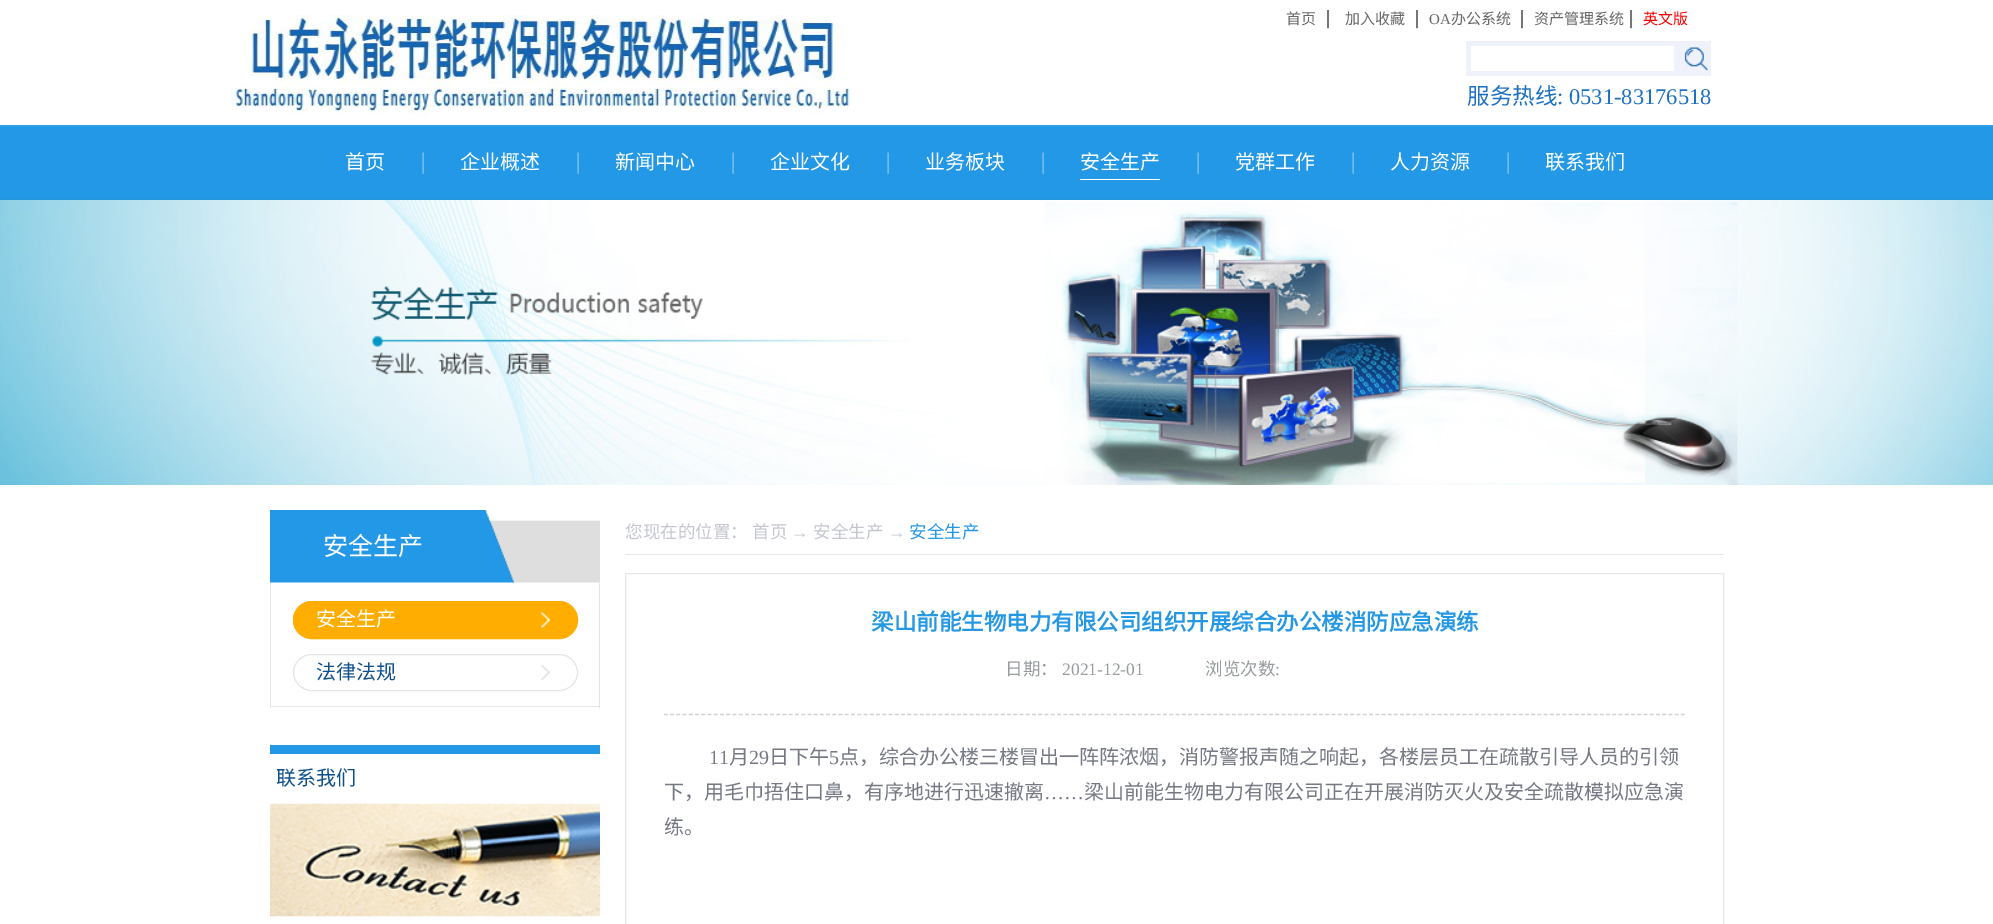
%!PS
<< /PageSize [1993 924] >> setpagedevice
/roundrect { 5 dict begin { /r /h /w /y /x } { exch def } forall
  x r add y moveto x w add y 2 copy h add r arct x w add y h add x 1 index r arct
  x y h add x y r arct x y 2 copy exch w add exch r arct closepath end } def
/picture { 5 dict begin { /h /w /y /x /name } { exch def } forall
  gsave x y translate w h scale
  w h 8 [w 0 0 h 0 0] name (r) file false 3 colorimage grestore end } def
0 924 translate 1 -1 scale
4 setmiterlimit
1 setgray
0 0 1993 924 rectfill
(img1.rgb) 231 15 619 100 picture
/NotoSansCJKSC-Regular [15 0 0 -15 0 0] selectfont
0.412 setgray
1286 24 moveto (首页) show
/LiberationSerif-Regular [20 0 0 -20 0 0] selectfont
0 setgray
1326 24 moveto (|) show
/NotoSansCJKSC-Regular [15 0 0 -15 0 0] selectfont
0.412 setgray
1345 24 moveto (加入收藏) show
/LiberationSerif-Regular [20 0 0 -20 0 0] selectfont
0 setgray
1415 24 moveto (|) show
/LiberationSerif-Regular [15 0 0 -15 0 0] selectfont
0.412 setgray
1429 24 moveto (OA) show
/NotoSansCJKSC-Regular [15 0 0 -15 0 0] selectfont
1451 24 moveto (办公系统) show
/LiberationSerif-Regular [20 0 0 -20 0 0] selectfont
0 setgray
1520 24 moveto (|) show
/NotoSansCJKSC-Regular [15 0 0 -15 0 0] selectfont
0.412 setgray
1534 24 moveto (资产管理系统) show
/LiberationSerif-Regular [20 0 0 -20 0 0] selectfont
0 setgray
1629 24 moveto (|) show
/NotoSansCJKSC-Regular [15 0 0 -15 0 0] selectfont
0.996 0 0 setrgbcolor
1643 24 moveto (英文版) show
0.937 0.945 0.984 setrgbcolor
1466 41 245 35 rectfill
1 setgray
1471 46 203 25 rectfill
(img2.rgb) 1684 47 24 24 picture
/NotoSansCJKSC-Regular [22.5 0 0 -22.5 0 0] selectfont
0.114 0.443 0.761 setrgbcolor
1467 104 moveto (服务热线) show
/LiberationSerif-Regular [22.5 0 0 -22.5 0 0] selectfont
1557 104 moveto (: 0531-83176518) show
(img3.rgb) 0 125 1993 75 picture
/NotoSansCJKSC-Regular [20 0 0 -20 0 0] selectfont
1 setgray
345 169 moveto (首页) show
(img4.rgb) 422 152 2 22 picture
460 169 moveto (企业概述) show
(img4.rgb) 577 152 2 22 picture
615 169 moveto (新闻中心) show
(img4.rgb) 732 152 2 22 picture
770 169 moveto (企业文化) show
(img4.rgb) 887 152 2 22 picture
925 169 moveto (业务板块) show
(img4.rgb) 1042 152 2 22 picture
1080 169 moveto (安全生产) show
0.996 0.988 0.992 setrgbcolor
1080 179 80 1 rectfill
(img4.rgb) 1197 152 2 22 picture
1 setgray
1235 169 moveto (党群工作) show
(img4.rgb) 1352 152 2 22 picture
1390 169 moveto (人力资源) show
(img4.rgb) 1507 152 2 22 picture
1545 169 moveto (联系我们) show
(img5.rgb) 0 200 1993 285 picture
(img6.rgb) 270 510 330 73 picture
/NotoSansCJKSC-Regular [25 0 0 -25 0 0] selectfont
323 555 moveto (安全生产) show
0.902 0.898 0.898 setrgbcolor
599 583 1 125 rectfill
270 706 330 1 rectfill
270 583 1 125 rectfill
1 0.682 0 setrgbcolor
293 601 285 38 19 roundrect fill
(img7.rgb) 541 612 9 16 picture
293.5 601.5 284 37 18.5 roundrect stroke
/NotoSansCJKSC-Regular [20 0 0 -20 0 0] selectfont
1 setgray
316 626 moveto (安全生产) show
(img8.rgb) 541 665 9 15 picture
0.898 setgray
293.5 654.5 284 36 18 roundrect stroke
0.055 0.314 0.549 setrgbcolor
316 679 moveto (法律法规) show
0.133 0.596 0.902 setrgbcolor
270 745 330 9 rectfill
0.055 0.314 0.549 setrgbcolor
276 785 moveto (联系我们) show
(img9.rgb) 270 803 330 114 picture
0.898 setgray
625 554 1099 1 rectfill
/NotoSansCJKSC-Regular [17.5 0 0 -17.5 0 0] selectfont
0.773 0.78 0.816 setrgbcolor
625 538 moveto (您现在的位置：) show
752 538 moveto (首页) show
/LiberationSerif-Regular [17.5 0 0 -17.5 0 0] selectfont
791 538 moveto (→) show
/NotoSansCJKSC-Regular [17.5 0 0 -17.5 0 0] selectfont
813 538 moveto (安全生产) show
/LiberationSerif-Regular [17.5 0 0 -17.5 0 0] selectfont
888 538 moveto (→) show
/NotoSansCJKSC-Regular [17.5 0 0 -17.5 0 0] selectfont
0.145 0.596 0.894 setrgbcolor
909 538 moveto (安全生产) show
0.91 setgray
625.5 573.5 1098 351 rectstroke
0.824 setgray
1.2 setlinewidth
[3.75 2.49] 0 setdash
newpath 664 714.5 moveto 1685 714.5 lineto stroke
/NotoSansCJKSC-Bold [22.5 0 0 -22.5 0 0] selectfont
0.145 0.596 0.894 setrgbcolor
871 630 moveto (梁山前能生物电力有限公司组织开展综合办公楼消防应急演练) show
/NotoSansCJKSC-Regular [17.5 0 0 -17.5 0 0] selectfont
0.588 0.608 0.616 setrgbcolor
1005 675 moveto (日期：) show
/LiberationSerif-Regular [17.5 0 0 -17.5 0 0] selectfont
1062 675 moveto (2021-12-01) show
/NotoSansCJKSC-Regular [17.5 0 0 -17.5 0 0] selectfont
1205 675 moveto (浏览次数) show
/LiberationSerif-Regular [17.5 0 0 -17.5 0 0] selectfont
1275 675 moveto (:) show
/LiberationSerif-Regular [20 0 0 -20 0 0] selectfont
0.463 0.475 0.518 setrgbcolor
709 764 moveto (11) show
/NotoSansCJKSC-Regular [20 0 0 -20 0 0] selectfont
729 764 moveto (月) show
/LiberationSerif-Regular [20 0 0 -20 0 0] selectfont
749 764 moveto (29) show
/NotoSansCJKSC-Regular [20 0 0 -20 0 0] selectfont
769 764 moveto (日下午) show
/LiberationSerif-Regular [20 0 0 -20 0 0] selectfont
829 764 moveto (5) show
/NotoSansCJKSC-Regular [20 0 0 -20 0 0] selectfont
839 764 moveto (点，综合办公楼三楼冒出一阵阵浓烟，消防警报声随之响起，各楼层员工在疏散引导人员的引领) show
664 799 moveto (下，用毛巾捂住口鼻，有序地进行迅速撤离) show
/LiberationSerif-Regular [20 0 0 -20 0 0] selectfont
1044 799 moveto (……) show
/NotoSansCJKSC-Regular [20 0 0 -20 0 0] selectfont
1084 799 moveto (梁山前能生物电力有限公司正在开展消防灭火及安全疏散模拟应急演) show
664 834 moveto (练。) show
showpage
